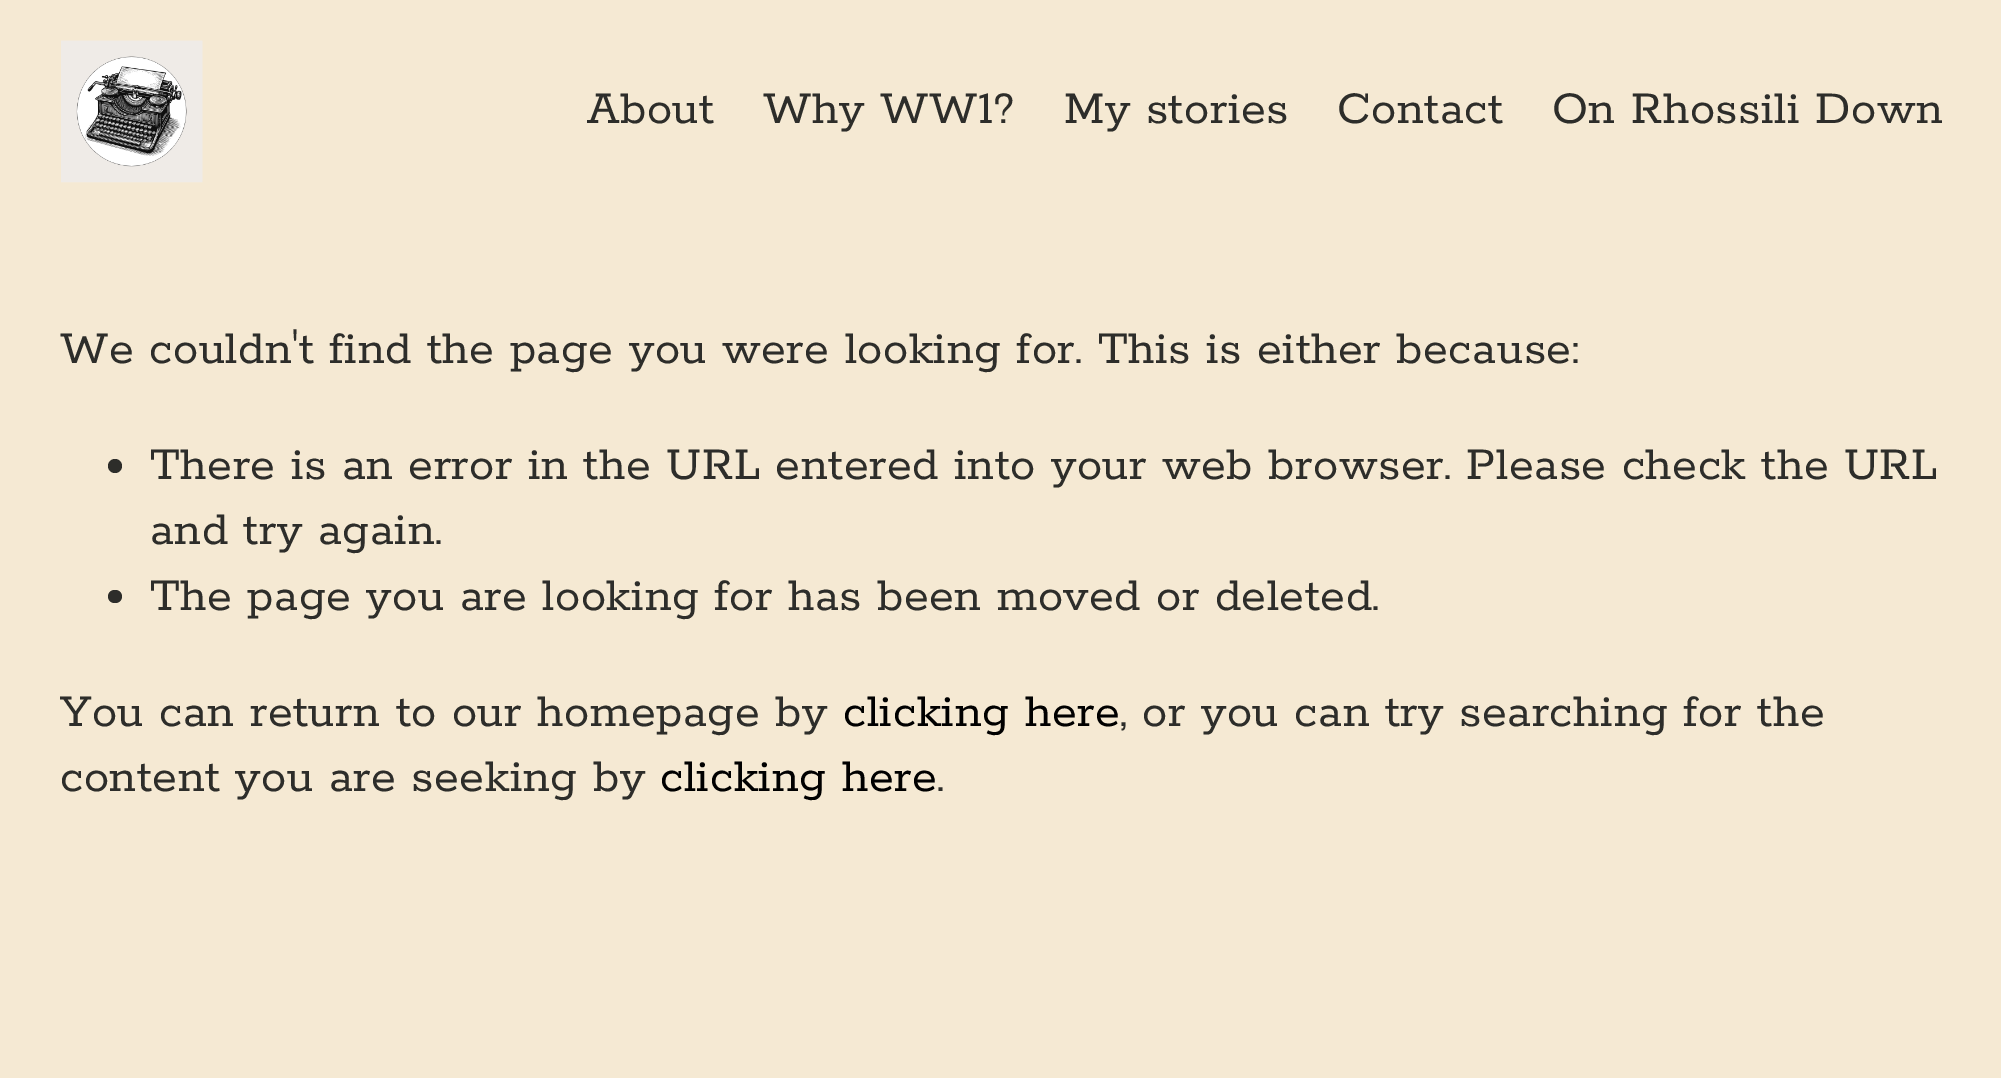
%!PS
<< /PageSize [2001 1078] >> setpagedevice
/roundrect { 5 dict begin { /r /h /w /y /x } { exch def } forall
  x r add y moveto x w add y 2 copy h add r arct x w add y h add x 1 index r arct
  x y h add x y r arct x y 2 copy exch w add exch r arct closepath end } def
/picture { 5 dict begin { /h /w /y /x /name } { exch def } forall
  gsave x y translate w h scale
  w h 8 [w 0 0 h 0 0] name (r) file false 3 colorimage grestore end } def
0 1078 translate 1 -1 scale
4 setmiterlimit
0.961 0.914 0.827 setrgbcolor
0 0 2001 1078 rectfill
(img1.rgb) 61 40 142 143 picture
/Rokkitt-Regular [50.4 0 0 -50.4 0 0] selectfont
0.176 0.176 0.165 setrgbcolor
587 123 moveto 0.5 0 (About) ashow
763 123 moveto 0.5 0 (Why WW1?) ashow
1064 123 moveto 0.5 0 (My stories) ashow
1337 123 moveto 0.5 0 (Contact) ashow
1552 123 moveto 0.5 0 (On Rhossili Down) ashow
60 363 moveto 0.5 0 (We couldn't find the page you were looking for. This is either because:) ashow
newpath 115 466 7 0 360 arc closepath fill
150 479 moveto 0.5 0 (There is an error in the URL entered into your web browser. Please check the URL) ashow
150 544 moveto 0.5 0 (and try again.) ashow
108 590 14 13 6.5 roundrect fill
150 610 moveto 0.5 0 (The page you are looking for has been moved or deleted.) ashow
60 726 moveto 0.5 0 (You can return to our homepage by) ashow
0 setgray
843 726 moveto 0.5 0 (clicking here) ashow
0.176 0.176 0.165 setrgbcolor
1120 726 moveto 0.5 0 (, or you can try searching for the) ashow
60 791 moveto 0.5 0 (content you are seeking by) ashow
0 setgray
660 791 moveto 0.5 0 (clicking here) ashow
0.176 0.176 0.165 setrgbcolor
937 791 moveto 0.5 0 (.) ashow
showpage
